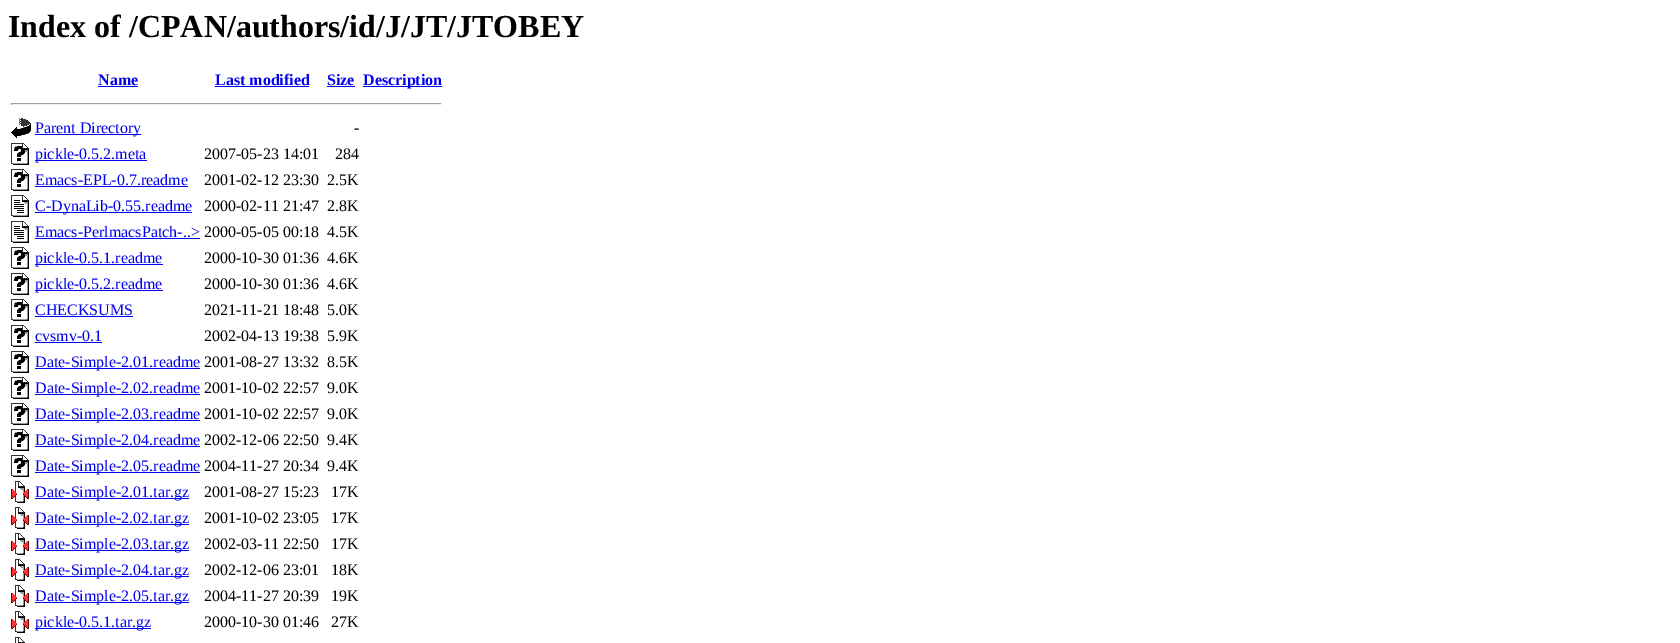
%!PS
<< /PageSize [1680 643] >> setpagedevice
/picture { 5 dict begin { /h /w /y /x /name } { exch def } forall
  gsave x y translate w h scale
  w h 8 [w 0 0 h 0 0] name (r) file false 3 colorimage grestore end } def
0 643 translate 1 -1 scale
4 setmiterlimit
1 setgray
0 0 1680 643 rectfill
/LiberationSerif-Bold [32 0 0 -32 0 0] selectfont
0 setgray
8 37 moveto (Index of /CPAN/authors/id/J/JT/JTOBEY) show
/LiberationSerif-Bold [16 0 0 -16 0 0] selectfont
0 0 0.933 setrgbcolor
98 85 moveto (Name) show
98 86 40 1 rectfill
215 85 moveto (Last modified) show
215 86 94 1 rectfill
327 85 moveto (Size) show
327 86 28 1 rectfill
363 86 79 1 rectfill
363 85 moveto (Description) show
0.624 setgray
11 103 431 1 rectfill
0.933 setgray
441 103 1 2 rectfill
11 104 431 1 rectfill
0.624 setgray
11 103 1 2 rectfill
(img1.rgb) 11 118 20 20 picture
0 0 0.933 setrgbcolor
35 134 106 1 rectfill
/LiberationSerif-Regular [16 0 0 -16 0 0] selectfont
35 133 moveto (Parent Directory) show
0 setgray
354 133 moveto (-) show
(img2.rgb) 11 143 18 22 picture
0 0 0.933 setrgbcolor
35 160 112 1 rectfill
35 159 moveto (pickle-0.5.2.meta) show
0 setgray
204 159 moveto (2007-05-23 14:01) show
335 159 moveto (284) show
(img2.rgb) 11 169 18 22 picture
0 0 0.933 setrgbcolor
35 185 moveto (Emacs-EPL-0.7.readme) show
35 186 153 1 rectfill
0 setgray
204 185 moveto (2001-02-12 23:30) show
327 185 moveto (2.5K) show
(img3.rgb) 11 195 18 22 picture
0 0 0.933 setrgbcolor
35 212 157 1 rectfill
35 211 moveto (C-DynaLib-0.55.readme) show
0 setgray
204 211 moveto (2000-02-11 21:47) show
327 211 moveto (2.8K) show
(img3.rgb) 11 221 18 22 picture
0 0 0.933 setrgbcolor
35 237 moveto (Emacs-PerlmacsPatch-..>) show
35 238 165 1 rectfill
0 setgray
204 237 moveto (2000-05-05 00:18) show
327 237 moveto (4.5K) show
(img2.rgb) 11 247 18 22 picture
0 0 0.933 setrgbcolor
35 264 128 1 rectfill
35 263 moveto (pickle-0.5.1.readme) show
0 setgray
204 263 moveto (2000-10-30 01:36) show
327 263 moveto (4.6K) show
(img2.rgb) 11 273 18 22 picture
0 0 0.933 setrgbcolor
35 290 128 1 rectfill
35 289 moveto (pickle-0.5.2.readme) show
0 setgray
204 289 moveto (2000-10-30 01:36) show
327 289 moveto (4.6K) show
(img2.rgb) 11 299 18 22 picture
0 0 0.933 setrgbcolor
35 315 moveto (CHECKSUMS) show
35 316 98 1 rectfill
0 setgray
204 315 moveto (2021-11-21 18:48) show
327 315 moveto (5.0K) show
(img2.rgb) 11 325 18 22 picture
0 0 0.933 setrgbcolor
35 341 moveto (cvsmv-0.1) show
35 342 67 1 rectfill
0 setgray
204 341 moveto (2002-04-13 19:38) show
327 341 moveto (5.9K) show
(img2.rgb) 11 351 18 22 picture
0 0 0.933 setrgbcolor
35 368 165 1 rectfill
35 367 moveto (Date-Simple-2.01.readme) show
0 setgray
204 367 moveto (2001-08-27 13:32) show
327 367 moveto (8.5K) show
(img2.rgb) 11 377 18 22 picture
0 0 0.933 setrgbcolor
35 394 165 1 rectfill
35 393 moveto (Date-Simple-2.02.readme) show
0 setgray
204 393 moveto (2001-10-02 22:57) show
327 393 moveto (9.0K) show
(img2.rgb) 11 403 18 22 picture
0 0 0.933 setrgbcolor
35 420 165 1 rectfill
35 419 moveto (Date-Simple-2.03.readme) show
0 setgray
204 419 moveto (2001-10-02 22:57) show
327 419 moveto (9.0K) show
(img2.rgb) 11 429 18 22 picture
0 0 0.933 setrgbcolor
35 446 165 1 rectfill
35 445 moveto (Date-Simple-2.04.readme) show
0 setgray
204 445 moveto (2002-12-06 22:50) show
327 445 moveto (9.4K) show
(img2.rgb) 11 455 18 22 picture
0 0 0.933 setrgbcolor
35 472 165 1 rectfill
35 471 moveto (Date-Simple-2.05.readme) show
0 setgray
204 471 moveto (2004-11-27 20:34) show
327 471 moveto (9.4K) show
(img4.rgb) 11 481 18 22 picture
0 0 0.933 setrgbcolor
35 498 154 1 rectfill
35 497 moveto (Date-Simple-2.01.tar.gz) show
0 setgray
204 497 moveto (2001-08-27 15:23) show
331 497 moveto (17K) show
(img4.rgb) 11 507 18 22 picture
0 0 0.933 setrgbcolor
35 524 154 1 rectfill
35 523 moveto (Date-Simple-2.02.tar.gz) show
0 setgray
204 523 moveto (2001-10-02 23:05) show
331 523 moveto (17K) show
(img4.rgb) 11 533 18 22 picture
0 0 0.933 setrgbcolor
35 550 154 1 rectfill
35 549 moveto (Date-Simple-2.03.tar.gz) show
0 setgray
204 549 moveto (2002-03-11 22:50) show
331 549 moveto (17K) show
(img4.rgb) 11 559 18 22 picture
0 0 0.933 setrgbcolor
35 576 154 1 rectfill
35 575 moveto (Date-Simple-2.04.tar.gz) show
0 setgray
204 575 moveto (2002-12-06 23:01) show
331 575 moveto (18K) show
(img4.rgb) 11 585 18 22 picture
0 0 0.933 setrgbcolor
35 602 154 1 rectfill
35 601 moveto (Date-Simple-2.05.tar.gz) show
0 setgray
204 601 moveto (2004-11-27 20:39) show
331 601 moveto (19K) show
(img4.rgb) 11 611 18 22 picture
0 0 0.933 setrgbcolor
35 628 116 1 rectfill
35 627 moveto (pickle-0.5.1.tar.gz) show
0 setgray
204 627 moveto (2000-10-30 01:46) show
331 627 moveto (27K) show
(img5.rgb) 15 637 10 6 picture
showpage
